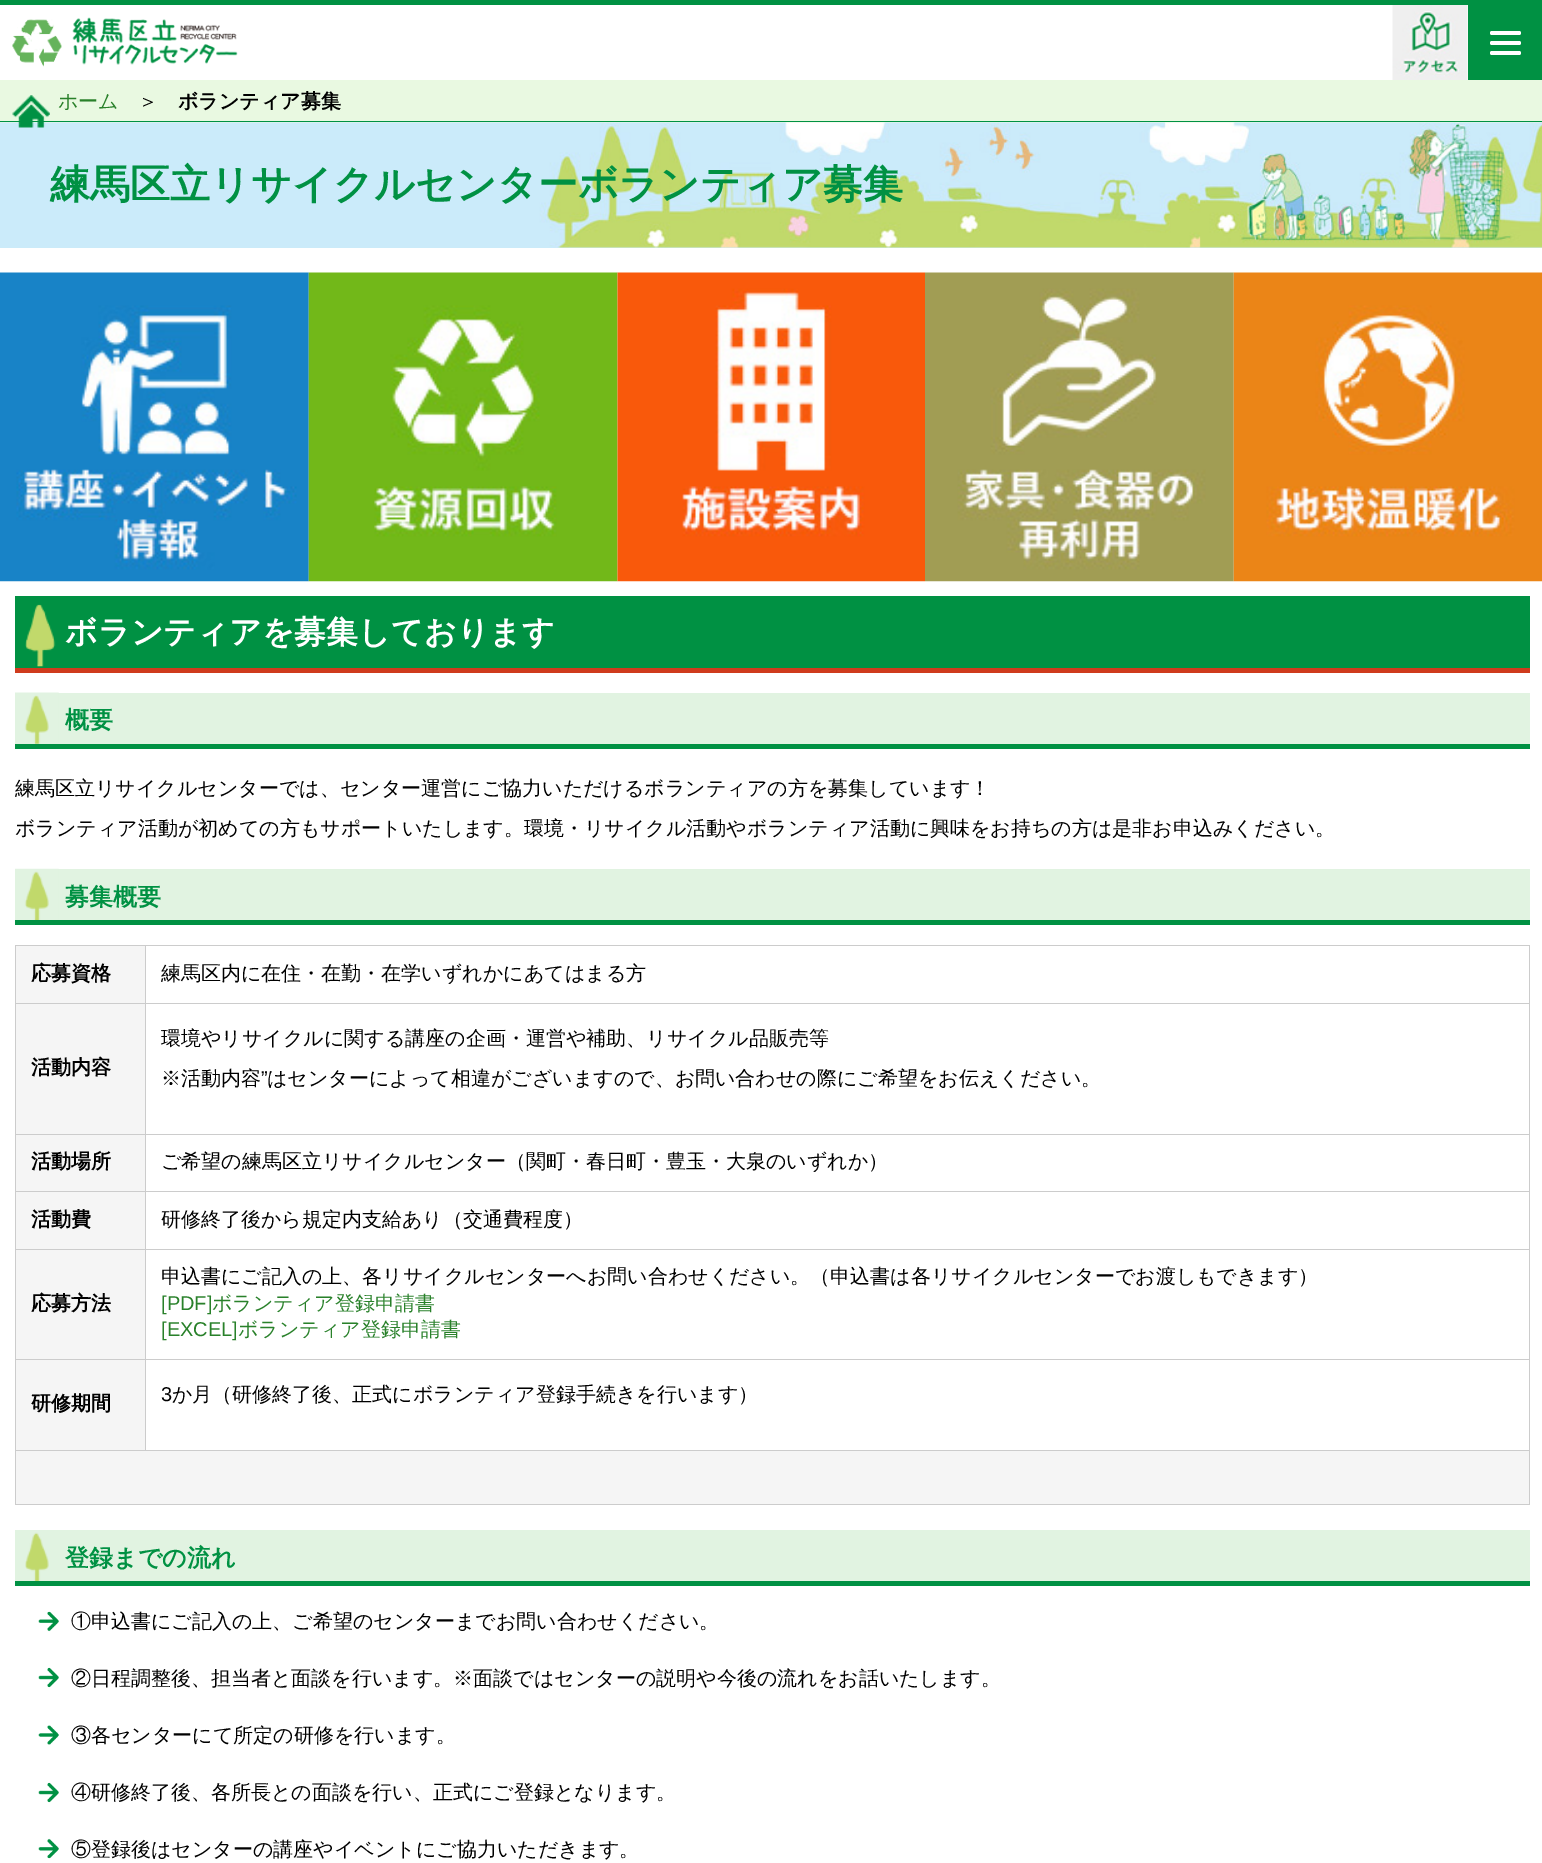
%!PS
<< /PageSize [1542 1863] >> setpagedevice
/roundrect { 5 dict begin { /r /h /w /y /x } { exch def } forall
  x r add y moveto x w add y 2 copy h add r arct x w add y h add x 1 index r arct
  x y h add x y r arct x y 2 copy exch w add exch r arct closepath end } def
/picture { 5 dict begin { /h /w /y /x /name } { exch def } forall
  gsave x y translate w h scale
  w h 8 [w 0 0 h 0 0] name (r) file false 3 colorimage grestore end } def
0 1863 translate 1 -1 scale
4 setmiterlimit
1 setgray
0 0 1542 1863 rectfill
0 0.569 0.263 setrgbcolor
0 0 1542 5 rectfill
(img1.rgb) 12 17 226 50 picture
(img2.rgb) 1392 5 76 75 picture
1468 5 74 75 rectfill
1 setgray
1490 41 31 4 2 roundrect fill
1490 31 31 4 2 roundrect fill
1490 51 31 4 2 roundrect fill
0.914 0.976 0.882 setrgbcolor
0 80 1542 43 rectfill
0 0.569 0.263 setrgbcolor
0 121 1542 1 rectfill
0.796 0.922 0.98 setrgbcolor
0 247 1542 1 rectfill
(img4.rgb) 0 122 1542 126 picture
(img3.rgb) 12 95 38 33 picture
/WenQuanYiZenHei-Medium [20 0 0 -20 0 0] selectfont
0.161 0.506 0.165 setrgbcolor
58 108 moveto (ホーム) show
0 setgray
138 108 moveto (＞) show
/WenQuanYiZenHei-Bold [20 0 0 -20 0 0] selectfont
178 108 moveto (ボランティア募集) show
/WenQuanYiZenHei-Bold [40 0 0 -40 0 0] selectfont
0 0.569 0.263 setrgbcolor
50 198 moveto (練馬区立リサイクルセンターボランティア募集) show
(img5.rgb) 0 272 309 310 picture
(img6.rgb) 308 272 310 310 picture
(img7.rgb) 617 272 308 310 picture
(img8.rgb) 925 272 309 310 picture
(img9.rgb) 1233 272 309 310 picture
15 596 1515 72 rectfill
(img10.rgb) 25 604 31 63 picture
0.812 0.231 0.114 setrgbcolor
15 668 1515 5 rectfill
/WenQuanYiZenHei-Bold [32 0 0 -32 0 0] selectfont
1 setgray
65 643 moveto (ボランティアを募集しております) show
0.882 0.953 0.882 setrgbcolor
15 693 1515 51 rectfill
(img11.rgb) 15 692 44 52 picture
0 0.569 0.263 setrgbcolor
15 744 1515 5 rectfill
/WenQuanYiZenHei-Bold [24 0 0 -24 0 0] selectfont
65 728 moveto (概要) show
/WenQuanYiZenHei-Medium [20 0 0 -20 0 0] selectfont
0 setgray
15 795 moveto (練馬区立リサイクルセンターでは、センター運営にご協力いただけるボランティアの方を募集しています！) show
15 835 moveto (ボランティア活動が初めての方もサポートいたします。環境・リサイクル活動やボランティア活動に興味をお持ちの方は是非お申込みください。) show
0.882 0.953 0.882 setrgbcolor
58 869 1472 51 rectfill
(img12.rgb) 15 868 44 52 picture
0 0.569 0.263 setrgbcolor
15 920 1515 5 rectfill
/WenQuanYiZenHei-Bold [24 0 0 -24 0 0] selectfont
65 905 moveto (募集概要) show
0.8 setgray
15 945 1515 1 rectfill
15 945 1 560 rectfill
0.961 setgray
16 946 129 57 rectfill
0.8 setgray
145 946 1 505 rectfill
16 1003 130 1 rectfill
/WenQuanYiZenHei-Bold [20 0 0 -20 0 0] selectfont
0 setgray
31 980 moveto (応募資格) show
0.8 setgray
1529 946 1 559 rectfill
146 1003 1384 1 rectfill
/WenQuanYiZenHei-Medium [20 0 0 -20 0 0] selectfont
0 setgray
161 980 moveto (練馬区内に在住・在勤・在学いずれかにあてはまる方) show
0.961 setgray
16 1004 129 130 rectfill
0.8 setgray
16 1134 1514 1 rectfill
/WenQuanYiZenHei-Bold [20 0 0 -20 0 0] selectfont
0 setgray
31 1074 moveto (活動内容) show
/WenQuanYiZenHei-Medium [20 0 0 -20 0 0] selectfont
161 1045 moveto (環境やリサイクルに関する講座の企画・運営や補助、リサイクル品販売等) show
161 1085 moveto (※活動内容) show
/LiberationSans-Regular [20 0 0 -20 0 0] selectfont
261 1085 moveto (”) show
/WenQuanYiZenHei-Medium [20 0 0 -20 0 0] selectfont
267 1085 moveto (はセンターによって相違がございますので、お問い合わせの際にご希望をお伝えください。) show
0.961 setgray
16 1135 129 114 rectfill
0.8 setgray
16 1191 1514 1 rectfill
/WenQuanYiZenHei-Bold [20 0 0 -20 0 0] selectfont
0 setgray
31 1168 moveto (活動場所) show
/WenQuanYiZenHei-Medium [20 0 0 -20 0 0] selectfont
161 1168 moveto (ご希望の練馬区立リサイクルセンター（関町・春日町・豊玉・大泉のいずれか）) show
0.8 setgray
16 1249 1514 1 rectfill
/WenQuanYiZenHei-Bold [20 0 0 -20 0 0] selectfont
0 setgray
31 1226 moveto (活動費) show
/WenQuanYiZenHei-Medium [20 0 0 -20 0 0] selectfont
161 1226 moveto (研修終了後から規定内支給あり（交通費程度）) show
0.961 setgray
16 1250 129 109 rectfill
0.8 setgray
16 1359 1514 1 rectfill
/WenQuanYiZenHei-Bold [20 0 0 -20 0 0] selectfont
0 setgray
31 1310 moveto (応募方法) show
/WenQuanYiZenHei-Medium [20 0 0 -20 0 0] selectfont
161 1283 moveto (申込書にご記入の上、各リサイクルセンターへお問い合わせください。（申込書は各リサイクルセンターでお渡しもできます）) show
/LiberationSans-Regular [20 0 0 -20 0 0] selectfont
0.161 0.506 0.165 setrgbcolor
161 1310 moveto ([PDF]) show
/WenQuanYiZenHei-Medium [20 0 0 -20 0 0] selectfont
212 1310 moveto (ボランティア登録申請書) show
/LiberationSans-Regular [20 0 0 -20 0 0] selectfont
161 1336 moveto ([EXCEL]) show
/WenQuanYiZenHei-Medium [20 0 0 -20 0 0] selectfont
238 1336 moveto (ボランティア登録申請書) show
0.961 setgray
16 1360 129 90 rectfill
0.8 setgray
16 1450 1514 1 rectfill
/WenQuanYiZenHei-Bold [20 0 0 -20 0 0] selectfont
0 setgray
31 1410 moveto (研修期間) show
/LiberationSans-Regular [20 0 0 -20 0 0] selectfont
161 1401 moveto (3) show
/WenQuanYiZenHei-Medium [20 0 0 -20 0 0] selectfont
172 1401 moveto (か月（研修終了後、正式にボランティア登録手続きを行います）) show
0.961 setgray
16 1451 1513 53 rectfill
0.8 setgray
16 1504 1514 1 rectfill
0.882 0.953 0.882 setrgbcolor
15 1530 1515 51 rectfill
(img13.rgb) 25 1532 24 49 picture
0 0.569 0.263 setrgbcolor
15 1581 1515 5 rectfill
/WenQuanYiZenHei-Bold [24 0 0 -24 0 0] selectfont
65 1566 moveto (登録までの流れ) show
(img14.rgb) 38 1611 21 21 picture
/WenQuanYiZenHei-Medium [20 0 0 -20 0 0] selectfont
0 setgray
71 1628 moveto (①申込書にご記入の上、ご希望のセンターまでお問い合わせください。) show
(img15.rgb) 38 1667 21 21 picture
71 1685 moveto (②日程調整後、担当者と面談を行います。※面談ではセンターの説明や今後の流れをお話いたします。) show
(img16.rgb) 38 1725 21 20 picture
71 1742 moveto (③各センターにて所定の研修を行います。) show
(img17.rgb) 38 1782 21 21 picture
71 1799 moveto (④研修終了後、各所長との面談を行い、正式にご登録となります。) show
(img18.rgb) 38 1838 21 21 picture
71 1856 moveto (⑤登録後はセンターの講座やイベントにご協力いただきます。) show
showpage
